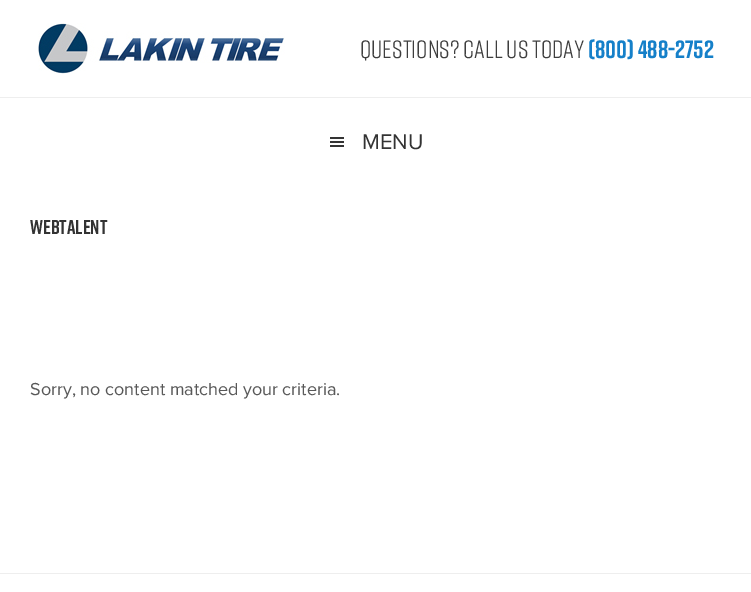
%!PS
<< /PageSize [751 592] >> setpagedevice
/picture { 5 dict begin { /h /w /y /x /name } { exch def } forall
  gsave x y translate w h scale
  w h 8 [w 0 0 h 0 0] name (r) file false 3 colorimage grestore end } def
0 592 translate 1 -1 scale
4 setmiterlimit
1 setgray
0 0 751 592 rectfill
(img1.rgb) 38 23 247 51 picture
/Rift-Regular [25 0 0 -25 0 0] selectfont
0.243 setgray
360 58 moveto (Questions? Call Us Today) show
/Rift-Bold [25 0 0 -25 0 0] selectfont
0.082 0.502 0.788 setrgbcolor
588 58 moveto (\(800\) 488-2752) show
0.933 setgray
0 97 751 1 rectfill
(img2.rgb) 330 137 14 10 picture
/ProximaNova-Regular [22 0 0 -22 0 0] selectfont
0.2 setgray
362 149 moveto (MENU) show
/Rift-Bold [20 0 0 -20 0 0] selectfont
30 234 moveto (webtalent) show
/ProximaNova-Regular [18 0 0 -18 0 0] selectfont
0.345 setgray
30 395 moveto (Sorry, no content matched your criteria.) show
0.933 setgray
0 573 751 1 rectfill
showpage
